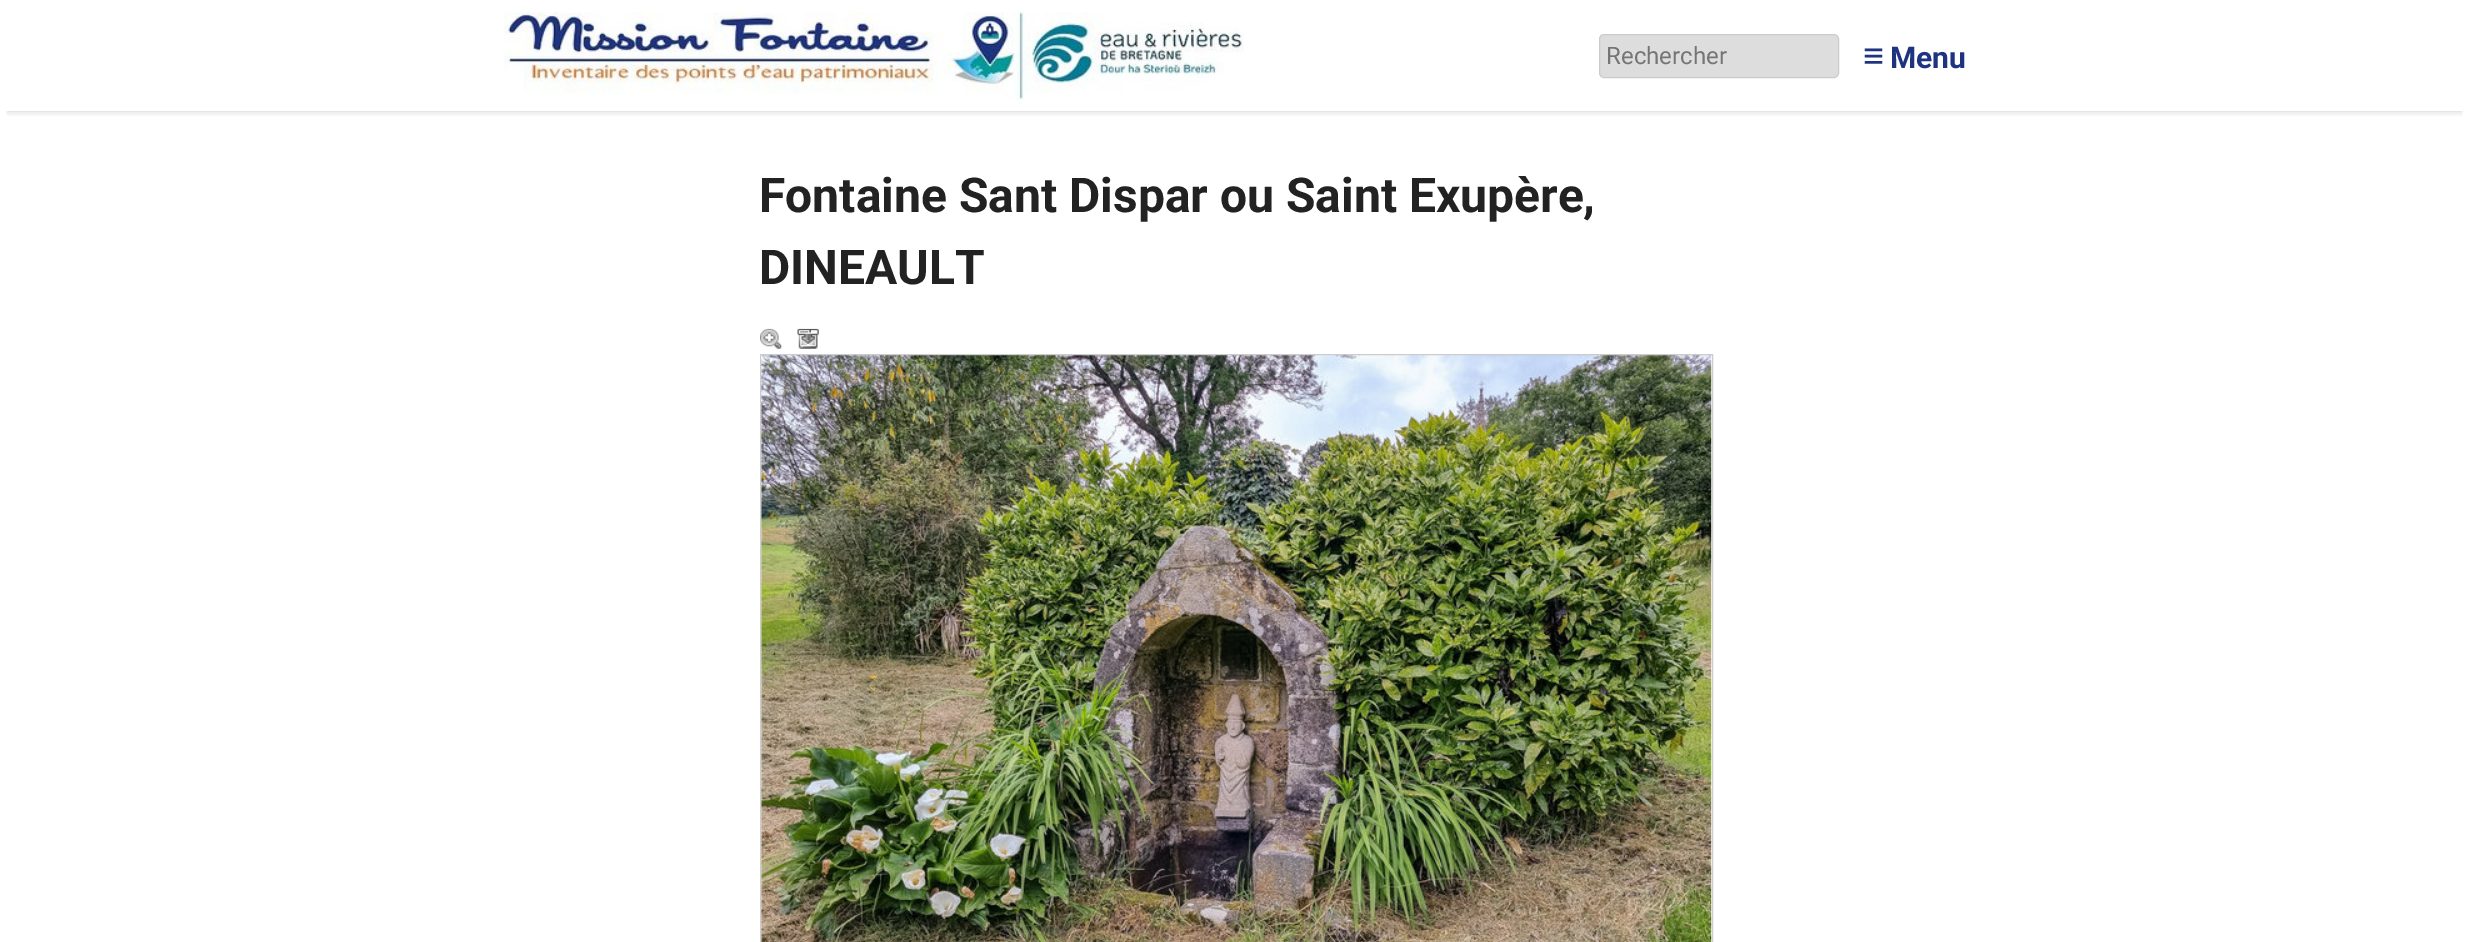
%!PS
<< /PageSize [2468 942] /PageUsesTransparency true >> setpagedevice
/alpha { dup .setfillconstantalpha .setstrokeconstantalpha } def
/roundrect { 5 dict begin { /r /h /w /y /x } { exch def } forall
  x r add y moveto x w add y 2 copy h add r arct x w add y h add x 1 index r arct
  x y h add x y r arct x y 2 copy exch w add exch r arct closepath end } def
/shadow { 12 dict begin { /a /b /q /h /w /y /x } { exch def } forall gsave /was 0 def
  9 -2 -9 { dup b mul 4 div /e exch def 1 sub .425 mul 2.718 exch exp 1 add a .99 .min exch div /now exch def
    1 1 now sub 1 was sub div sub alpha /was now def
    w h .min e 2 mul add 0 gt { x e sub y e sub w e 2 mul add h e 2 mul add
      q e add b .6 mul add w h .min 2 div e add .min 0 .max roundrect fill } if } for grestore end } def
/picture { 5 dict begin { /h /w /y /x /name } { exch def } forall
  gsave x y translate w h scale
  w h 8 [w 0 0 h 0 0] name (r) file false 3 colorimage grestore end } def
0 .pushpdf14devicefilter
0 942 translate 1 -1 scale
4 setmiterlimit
1 setgray
0 0 2468 942 rectfill
gsave
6 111 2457 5 rectclip
0 setgray
8 15 2453 96 0 4 0.2 shadow
grestore
(img1.rgb) 503 12 741 88 picture
0.867 setgray
1599.5 34.5 239 43 4.5 roundrect gsave fill grestore
0.8 setgray
stroke
/Roboto-Regular [24 0 0 -24 0 0] selectfont
0.459 setgray
1606 64 moveto (Rechercher) show
/LiberationSans-Bold [36 0 0 -36 0 0] selectfont
0.118 0.204 0.502 setrgbcolor
1863 68 moveto (≡) show
/Roboto-Bold [30 0 0 -30 0 0] selectfont
1890 68 moveto (Menu) show
/Roboto-Bold [48 0 0 -48 0 0] selectfont
0.133 setgray
759 212 moveto (Fontaine Sant Dispar ou Saint Exupère,) show
759 284 moveto (DINEAULT) show
(img2.rgb) 760 328 22 21 picture
(img3.rgb) 797 328 22 21 picture
(img4.rgb) 761 355 951 587 picture
0.8 setgray
760.5 354.5 952 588 rectstroke
.poppdf14devicefilter showpage
